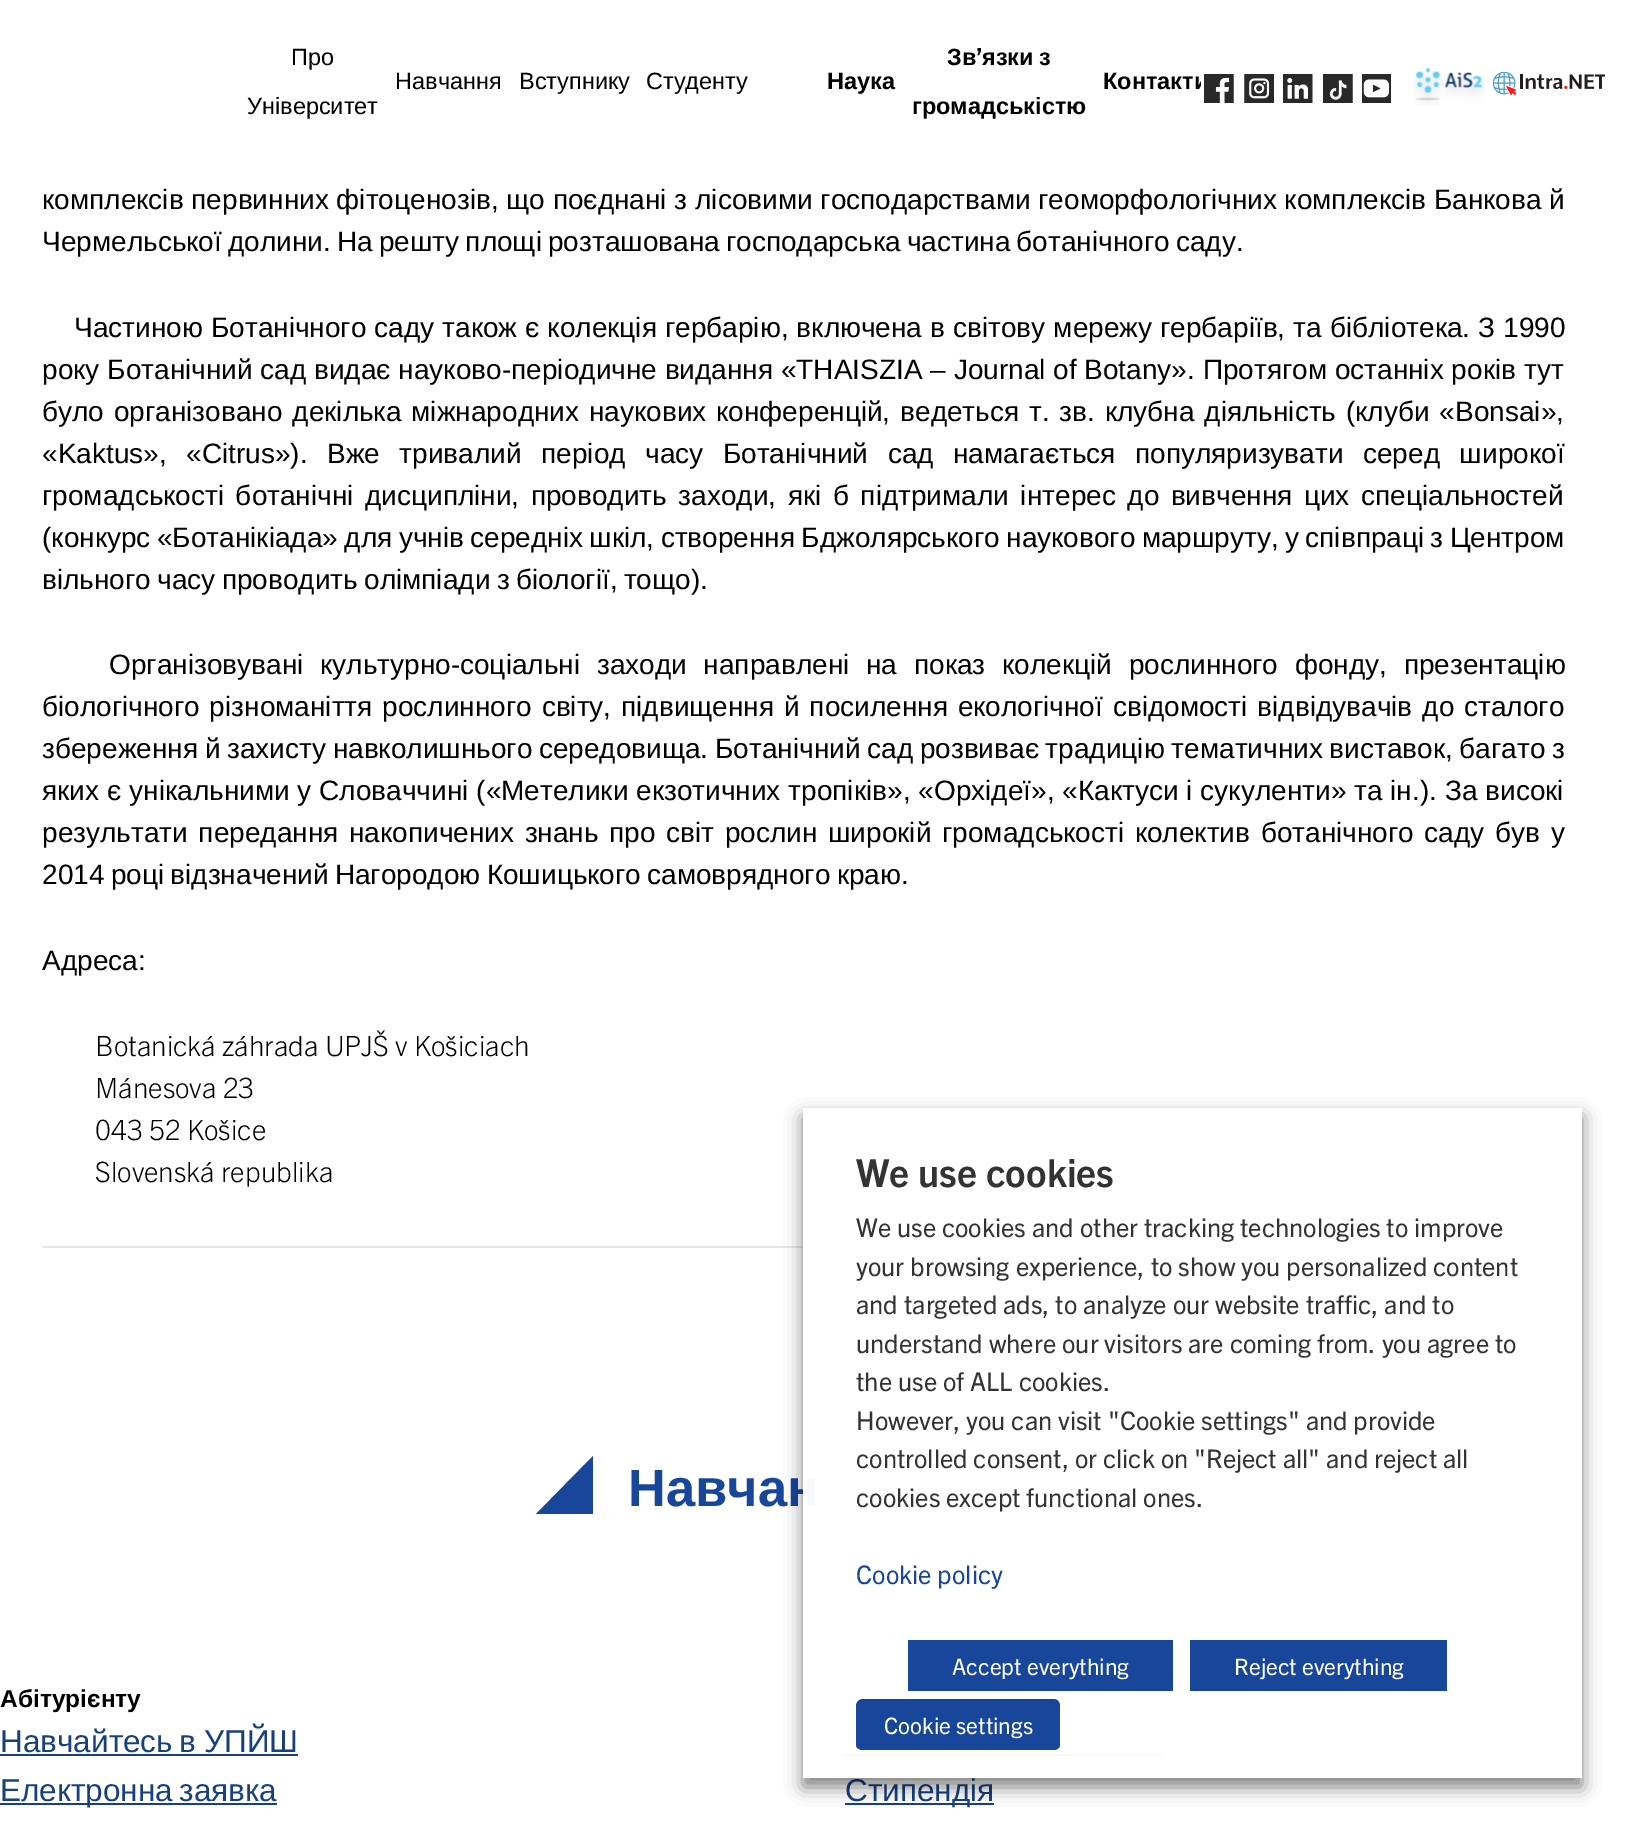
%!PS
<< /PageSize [1634 1830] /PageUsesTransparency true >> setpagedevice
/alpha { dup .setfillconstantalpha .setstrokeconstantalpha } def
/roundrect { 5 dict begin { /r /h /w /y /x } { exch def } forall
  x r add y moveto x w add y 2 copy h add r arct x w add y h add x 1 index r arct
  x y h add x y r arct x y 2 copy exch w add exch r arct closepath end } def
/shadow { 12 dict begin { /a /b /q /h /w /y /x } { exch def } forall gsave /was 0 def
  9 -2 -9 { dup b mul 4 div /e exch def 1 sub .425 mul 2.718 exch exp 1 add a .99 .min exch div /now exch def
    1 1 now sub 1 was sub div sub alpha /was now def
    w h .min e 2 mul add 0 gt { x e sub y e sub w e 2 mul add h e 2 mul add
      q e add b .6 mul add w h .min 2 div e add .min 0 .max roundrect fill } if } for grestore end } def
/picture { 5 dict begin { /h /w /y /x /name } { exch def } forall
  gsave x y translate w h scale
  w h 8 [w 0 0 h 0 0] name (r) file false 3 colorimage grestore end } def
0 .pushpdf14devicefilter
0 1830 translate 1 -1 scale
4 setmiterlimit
1 setgray
0 0 1634 1830 rectfill
/LiberationSans-Regular [23.5 0 0 -23.5 0 0] selectfont
0 setgray
291 65 moveto (Про) show
247 114 moveto (Університет) show
395 89 moveto (Навчання) show
519 89 moveto (Вступнику) show
646 89 moveto (Студенту) show
/LiberationSans-Bold [23.5 0 0 -23.5 0 0] selectfont
827 89 moveto (Наука) show
947 65 moveto (Зв) show
/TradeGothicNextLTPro-Bold [23.5 0 0 -23.5 0 0] selectfont
976 65 moveto (’) show
/LiberationSans-Bold [23.5 0 0 -23.5 0 0] selectfont
982 65 moveto -1 0 32 (язки з) widthshow
912 114 moveto (громадськістю) show
gsave
238 18 963 136 rectclip
1103 89 moveto (Контакти) show
grestore
(img1.rgb) 1204 74 30 29 picture
(img2.rgb) 1244 74 30 29 picture
(img3.rgb) 1283 74 30 29 picture
(img4.rgb) 1323 74 30 29 picture
(img5.rgb) 1362 74 29 29 picture
(img6.rgb) 1414 67 71 38 picture
(img7.rgb) 1493 72 112 23 picture
/LiberationSans-Regular [28 0 0 -28 0 0] selectfont
42 209 moveto (комплексів первинних фітоценозів, що поєднані з лісовими господарствами геоморфологічних комплексів Банкова й) show
42 251 moveto -1.6 0 32 (Чермельської долини. На решту площі розташована господарська частина ботанічного саду.) widthshow
74 337 moveto 0.25 0 32 (Частиною Ботанічного саду також є колекція гербарію, включена в світову мережу гербаріїв, та бібліотека. З 1990) widthshow
42 379 moveto (року Ботанічний сад видає науково-періодичне видання «THAISZIA – Journal of Botany». Протягом останніх років тут) show
42 421 moveto 2.1 0 32 (було організовано декілька міжнародних наукових конференцій, ведеться т. зв. клубна діяльність \(клуби «Bonsai»,) widthshow
42 463 moveto 11.75 0 32 («Kaktus», «Citrus»\). Вже тривалий період часу Ботанічний сад намагається популяризувати серед широкої) widthshow
42 505 moveto 3.75 0 32 (громадськості ботанічні дисципліни, проводить заходи, які б підтримали інтерес до вивчення цих спеціальностей) widthshow
42 547 moveto -1.4 0 32 (\(конкурс «Ботанікіада» для учнів середніх шкіл, створення Бджолярського наукового маршруту, у співпраці з Центром) widthshow
42 589 moveto -1.5 0 32 (вільного часу проводить олімпіади з біології, тощо\).) widthshow
109 674 moveto 9 0 32 (Організовувані культурно-соціальні заходи направлені на показ колекцій рослинного фонду, презентацію) widthshow
42 716 moveto 2.1 0 32 (біологічного різноманіття рослинного світу, підвищення й посилення екологічної свідомості відвідувачів до сталого) widthshow
42 758 moveto -1.1 0 32 (збереження й захисту навколишнього середовища. Ботанічний сад розвиває традицію тематичних виставок, багато з) widthshow
42 800 moveto 0.1 0 32 (яких є унікальними у Словаччині \(«Метелики екзотичних тропіків», «Орхідеї», «Кактуси і сукуленти» та ін.\). За високі) widthshow
42 842 moveto 2.9 0 32 (результати передання накопичених знань про світ рослин широкій громадськості колектив ботанічного саду був у) widthshow
42 884 moveto -1.5 0 32 (2014 році відзначений Нагородою Кошицького самоврядного краю.) widthshow
42 970 moveto (Адреса:) show
/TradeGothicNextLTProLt-Light [28 0 0 -28 0 0] selectfont
95 1056 moveto (Botanická záhrada UPJŠ v Košiciach) show
95 1098 moveto (Mánesova 23) show
95 1140 moveto (043 52 Košice) show
95 1182 moveto (Slovenská republika) show
0.898 0.906 0.922 setrgbcolor
42 1246 1523 2 rectfill
0.094 0.275 0.608 setrgbcolor
newpath 593 1514 moveto 536 1514 lineto 593 1456 lineto closepath fill
/LiberationSans-Bold [52.5 0 0 -52.5 0 0] selectfont
628 1506 moveto -2 0 32 (Навчан) widthshow
/LiberationSans-Bold [24.5 0 0 -24.5 0 0] selectfont
0 setgray
0 1707 moveto (Абітурієнту) show
/LiberationSans-Regular [31.5 0 0 -31.5 0 0] selectfont
0.086 0.251 0.51 setrgbcolor
0 1752 moveto -2 0 32 (Навчайтесь в) widthshow
0 1754 298 2 rectfill
204 1752 moveto (УПЙШ) show
0 1803 277 2 rectfill
0 1801 moveto -2 0 32 (Електронна заявка) widthshow
845 1754 317 2 rectfill
845 1803 149 2 rectfill
845 1801 moveto (Стипендія) show
gsave
newpath 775 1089 moveto 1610 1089 lineto 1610 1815 lineto 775 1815 lineto closepath 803 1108 moveto 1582 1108 lineto 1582 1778 lineto 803 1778 lineto closepath eoclip newpath
0 setgray
803 1117 779 670 0 9 0.5 shadow
grestore
0.97 alpha
1 setgray
803 1108 762 670 rectfill
/TradeGothicNextLTPro-Bold [38.5 0 0 -38.5 0 0] selectfont
1 alpha
0.2 setgray
856 1187 moveto (We use cookies) show
/TradeGothicNextLTPro-Regular [25.7 0 0 -25.7 0 0] selectfont
856 1237 moveto (We use cookies and other tracking technologies to improve) show
856 1276 moveto (your browsing experience, to show you personalized content) show
856 1314 moveto (and targeted ads, to analyze our website traffic, and to) show
856 1353 moveto (understand where our visitors are coming from. you agree to) show
856 1391 moveto (the use of ALL cookies.) show
856 1430 moveto (However, you can visit "Cookie settings" and provide) show
856 1468 moveto (controlled consent, or click on "Reject all" and reject all) show
856 1507 moveto (cookies except functional ones.) show
0.094 0.275 0.608 setrgbcolor
856 1584 moveto (Cookie policy) show
908 1640 265 51 rectfill
/TradeGothicNextLTPro-Regular [22.75 0 0 -22.75 0 0] selectfont
1 setgray
952 1675 moveto (Accept everything) show
0.094 0.275 0.608 setrgbcolor
1190 1640 257 51 rectfill
1 setgray
1234 1675 moveto (Reject everything) show
0.094 0.275 0.608 setrgbcolor
newpath 863 1699 moveto 1054 1699 lineto 1057 1699 1060 1702 1060 1706 curveto 1060 1745 lineto 1060 1748 1057 1750 1054 1750 curveto 863 1750 lineto 859 1750 856 1748 856 1745 curveto 856 1706 lineto 856 1702 859 1699 863 1699 curveto closepath fill
1 setgray
884 1734 moveto (Cookie settings) show
.poppdf14devicefilter showpage
